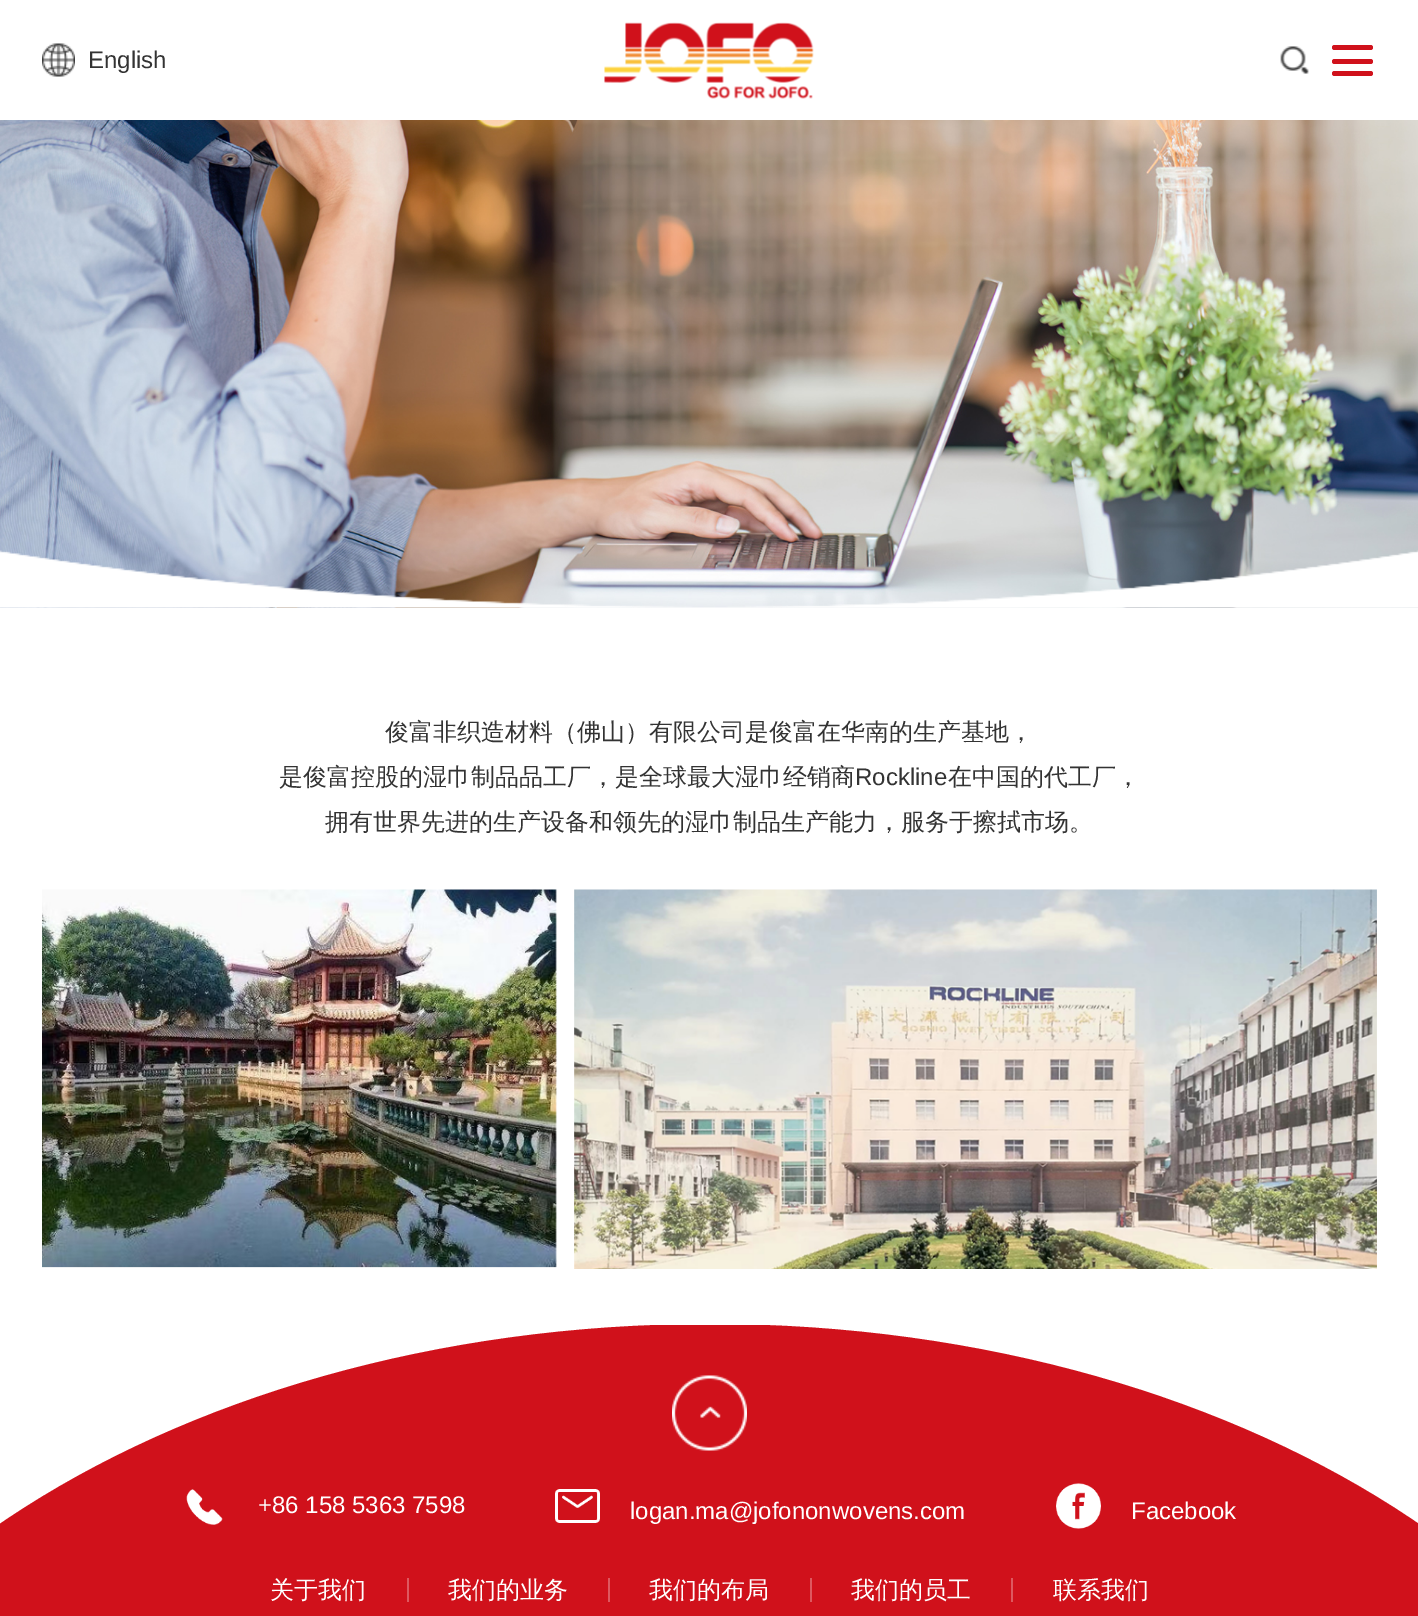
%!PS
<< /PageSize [1418 1616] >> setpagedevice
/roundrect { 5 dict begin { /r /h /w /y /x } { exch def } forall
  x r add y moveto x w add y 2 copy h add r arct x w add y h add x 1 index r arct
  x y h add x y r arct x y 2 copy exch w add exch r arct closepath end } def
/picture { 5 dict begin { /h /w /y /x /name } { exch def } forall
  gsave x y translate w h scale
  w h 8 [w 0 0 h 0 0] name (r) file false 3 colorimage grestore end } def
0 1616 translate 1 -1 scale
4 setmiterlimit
1 setgray
0 0 1418 1616 rectfill
(img1.rgb) 42 43 33 34 picture
/LiberationSans-Regular [24 0 0 -24 0 0] selectfont
0.2 setgray
88 68 moveto (English) show
(img2.rgb) 604 22 210 77 picture
(img3.rgb) 1280 46 29 28 picture
0.816 0.067 0.106 setrgbcolor
1332 45 41 5 2.5 roundrect fill
1332 59 41 5 2.5 roundrect fill
1332 71 41 5 2.5 roundrect fill
(img4.rgb) 0 120 1418 488 picture
(img5.rgb) 0 550 1418 58 picture
/WenQuanYiZenHei-Medium [24 0 0 -24 0 0] selectfont
0.2 setgray
385 740 moveto (俊富非织造材料（佛山）有限公司是俊富在华南的生产基地，) show
279 785 moveto (是俊富控股的湿巾制品品工厂，是全球最大湿巾经销商) show
/LiberationSans-Regular [24 0 0 -24 0 0] selectfont
855 785 moveto (Rockline) show
/WenQuanYiZenHei-Medium [24 0 0 -24 0 0] selectfont
948 785 moveto (在中国的代工厂，) show
325 830 moveto (拥有世界先进的生产设备和领先的湿巾制品生产能力，服务于擦拭市场。) show
(img6.rgb) 42 889 1335 380 picture
gsave
0 1325 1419 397 rectclip
0.816 0.067 0.106 setrgbcolor
newpath 710 1324 moveto 1258 1324 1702 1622 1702 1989 curveto 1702 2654 lineto -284 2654 lineto -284 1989 lineto -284 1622 161 1324 710 1324 curveto closepath fill
grestore
(img7.rgb) 672 1375 75 76 picture
(img8.rgb) 186 1489 37 36 picture
/LiberationSans-Regular [24 0 0 -24 0 0] selectfont
1 setgray
258 1513 moveto (+86 158 5363 7598) show
(img9.rgb) 555 1489 45 34 picture
630 1519 moveto (logan.ma@jofononwovens.com) show
(img10.rgb) 1056 1483 45 46 picture
1131 1519 moveto (Facebook) show
/WenQuanYiZenHei-Medium [24 0 0 -24 0 0] selectfont
270 1598 moveto (关于我们) show
0.871 0.345 0.373 setrgbcolor
407 1578 2 24 rectfill
1 setgray
448 1598 moveto (我们的业务) show
0.871 0.345 0.373 setrgbcolor
608 1578 2 24 rectfill
1 setgray
649 1598 moveto (我们的布局) show
0.871 0.345 0.373 setrgbcolor
810 1578 2 24 rectfill
1 setgray
851 1598 moveto (我们的员工) show
0.871 0.345 0.373 setrgbcolor
1011 1578 2 24 rectfill
1 setgray
1053 1598 moveto (联系我们) show
showpage
